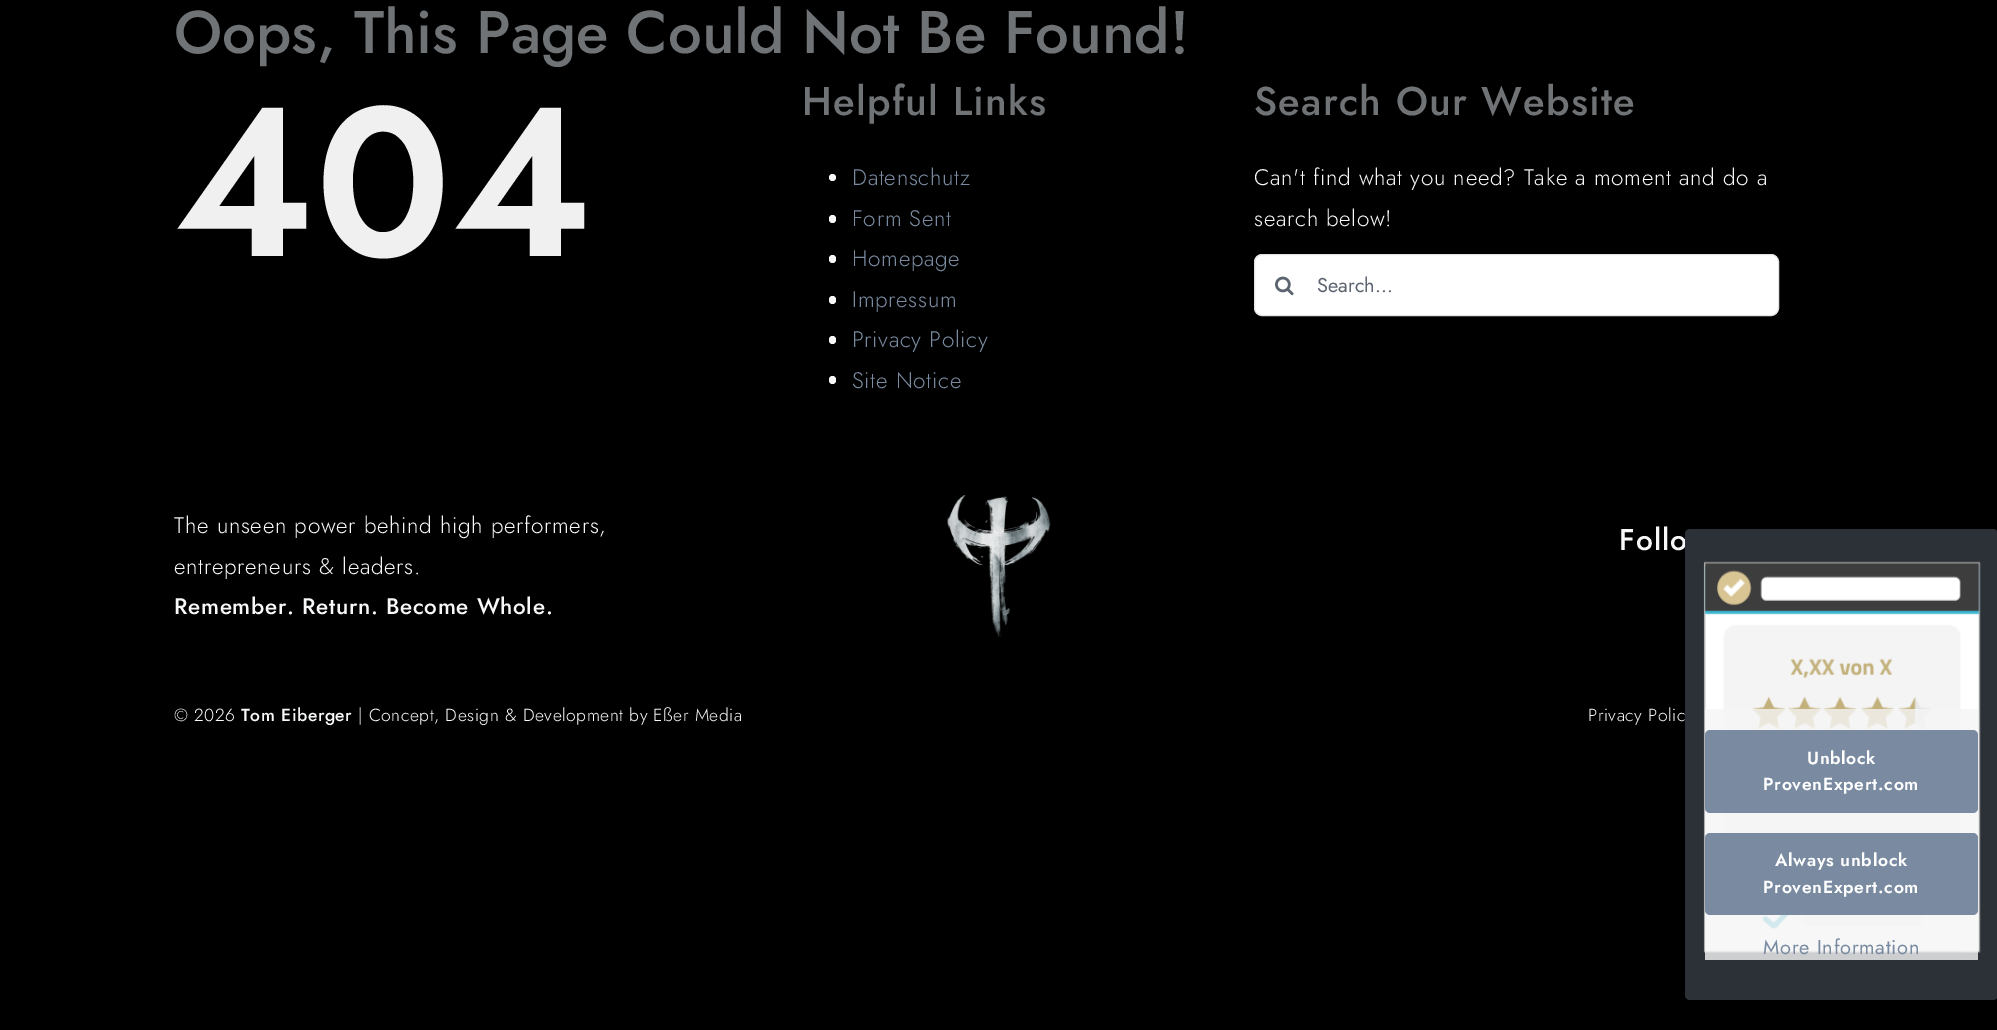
%!PS
<< /PageSize [1997 1030] /PageUsesTransparency true >> setpagedevice
/alpha { dup .setfillconstantalpha .setstrokeconstantalpha } def
/roundrect { 5 dict begin { /r /h /w /y /x } { exch def } forall
  x r add y moveto x w add y 2 copy h add r arct x w add y h add x 1 index r arct
  x y h add x y r arct x y 2 copy exch w add exch r arct closepath end } def
/picture { 5 dict begin { /h /w /y /x /name } { exch def } forall
  gsave x y translate w h scale
  w h 8 [w 0 0 h 0 0] name (r) file false 3 colorimage grestore end } def
0 .pushpdf14devicefilter
0 1030 translate 1 -1 scale
4 setmiterlimit
0 setgray
0 0 1997 1030 rectfill
/Jost-Medium [60 0 0 -60 0 0] selectfont
0.439 0.451 0.463 setrgbcolor
174 53 moveto (Oops, This Page Could Not Be Found!) show
/Jost-SemiBold [212 0 0 -212 0 0] selectfont
0.941 setgray
174 256 moveto 0.7 0 (404) ashow
/Jost-Medium [40 0 0 -40 0 0] selectfont
0.439 0.451 0.463 setrgbcolor
802 115 moveto 1.25 0 (Helpful Links) ashow
0.969 0.973 0.976 setrgbcolor
newpath 832.5 177.5 3.5 0 360 arc closepath fill
/Jost-Light [22.5 0 0 -22.5 0 0] selectfont
0.478 0.545 0.631 setrgbcolor
852 185 moveto 0.7 0 (Datenschutz) ashow
0.969 0.973 0.976 setrgbcolor
829 215 7 8 3.5 roundrect fill
0.478 0.545 0.631 setrgbcolor
852 226 moveto 0.7 0 (Form Sent) ashow
0.969 0.973 0.976 setrgbcolor
829 255 7 8 3.5 roundrect fill
0.478 0.545 0.631 setrgbcolor
852 266 moveto 0.7 0 (Homepage) ashow
0.969 0.973 0.976 setrgbcolor
829 296 7 8 3.5 roundrect fill
0.478 0.545 0.631 setrgbcolor
852 307 moveto 0.7 0 (Impressum) ashow
0.969 0.973 0.976 setrgbcolor
829 336 7 8 3.5 roundrect fill
0.478 0.545 0.631 setrgbcolor
852 347 moveto 0.7 0 (Privacy Policy) ashow
0.969 0.973 0.976 setrgbcolor
829 376 7 8 3.5 roundrect fill
0.478 0.545 0.631 setrgbcolor
852 388 moveto 0.7 0 (Site Notice) ashow
/Jost-Medium [40 0 0 -40 0 0] selectfont
0.439 0.451 0.463 setrgbcolor
1254 115 moveto 1.25 0 (Search Our Website) ashow
/Jost-Light [22.5 0 0 -22.5 0 0] selectfont
0.969 0.973 0.976 setrgbcolor
1254 185 moveto 0.7 0 (Can't find what you need? Take a moment and do a) ashow
1254 226 moveto 0.7 0 (search below!) ashow
1 setgray
1254.5 254.5 524 61 7.5 roundrect gsave fill grestore
0.882 0.89 0.898 setrgbcolor
stroke
(img1.rgb) 1275 276 19 20 picture
/Jost-Regular [20 0 0 -20 0 0] selectfont
0.361 0.392 0.439 setrgbcolor
1317 292 moveto (Search...) show
/Jost-Light [22.5 0 0 -22.5 0 0] selectfont
0.969 0.973 0.976 setrgbcolor
174 533 moveto 0.7 0 (The unseen power behind high performers,) ashow
174 574 moveto 0.7 0 (entrepreneurs & leaders.) ashow
/Jost-Medium [22.5 0 0 -22.5 0 0] selectfont
174 614 moveto 0.7 0 (Remember. Return. Become Whole.) ashow
(img2.rgb) 947 495 104 143 picture
/Jost-Medium [30 0 0 -30 0 0] selectfont
1619 550 moveto 1 0 (Follo) ashow
/Jost-Light [17.5 0 0 -17.5 0 0] selectfont
1 setgray
174 721 moveto 0.55 0 (© 2026) ashow
/Jost-Medium [17.5 0 0 -17.5 0 0] selectfont
0.969 0.973 0.976 setrgbcolor
241 721 moveto 0.55 0 (Tom Eiberger) ashow
/Jost-Light [17.5 0 0 -17.5 0 0] selectfont
1 setgray
358 721 moveto 0.55 0 (| Concept, Design & Development by) ashow
0.969 0.973 0.976 setrgbcolor
653 721 moveto 0.55 0 (Eßer Media) ashow
1588 721 moveto 0.55 0 (Privacy Polic) ashow
0.173 0.192 0.216 setrgbcolor
1685 529 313 471 5 roundrect fill
(img3.rgb) 1703 561 278 392 picture
0.8 alpha
0.961 setgray
1705 709 273 251 rectfill
1 alpha
0.478 0.545 0.631 setrgbcolor
1705 730 273 83 5 roundrect fill
/Jost-SemiBold [17.5 0 0 -17.5 0 0] selectfont
1 setgray
1807 764 moveto 0.7 0 (Unblock) ashow
1763 790 moveto 0.7 0 (ProvenExpert.com) ashow
0.478 0.545 0.631 setrgbcolor
1705 833 273 82 5 roundrect fill
1 setgray
1775 866 moveto 0.7 0 (Always unblock) ashow
1763 893 moveto 0.7 0 (ProvenExpert.com) ashow
/Jost-Regular [20 0 0 -20 0 0] selectfont
0.478 0.545 0.631 setrgbcolor
1763 954 moveto 0.7 0 (More Information) ashow
.poppdf14devicefilter showpage
